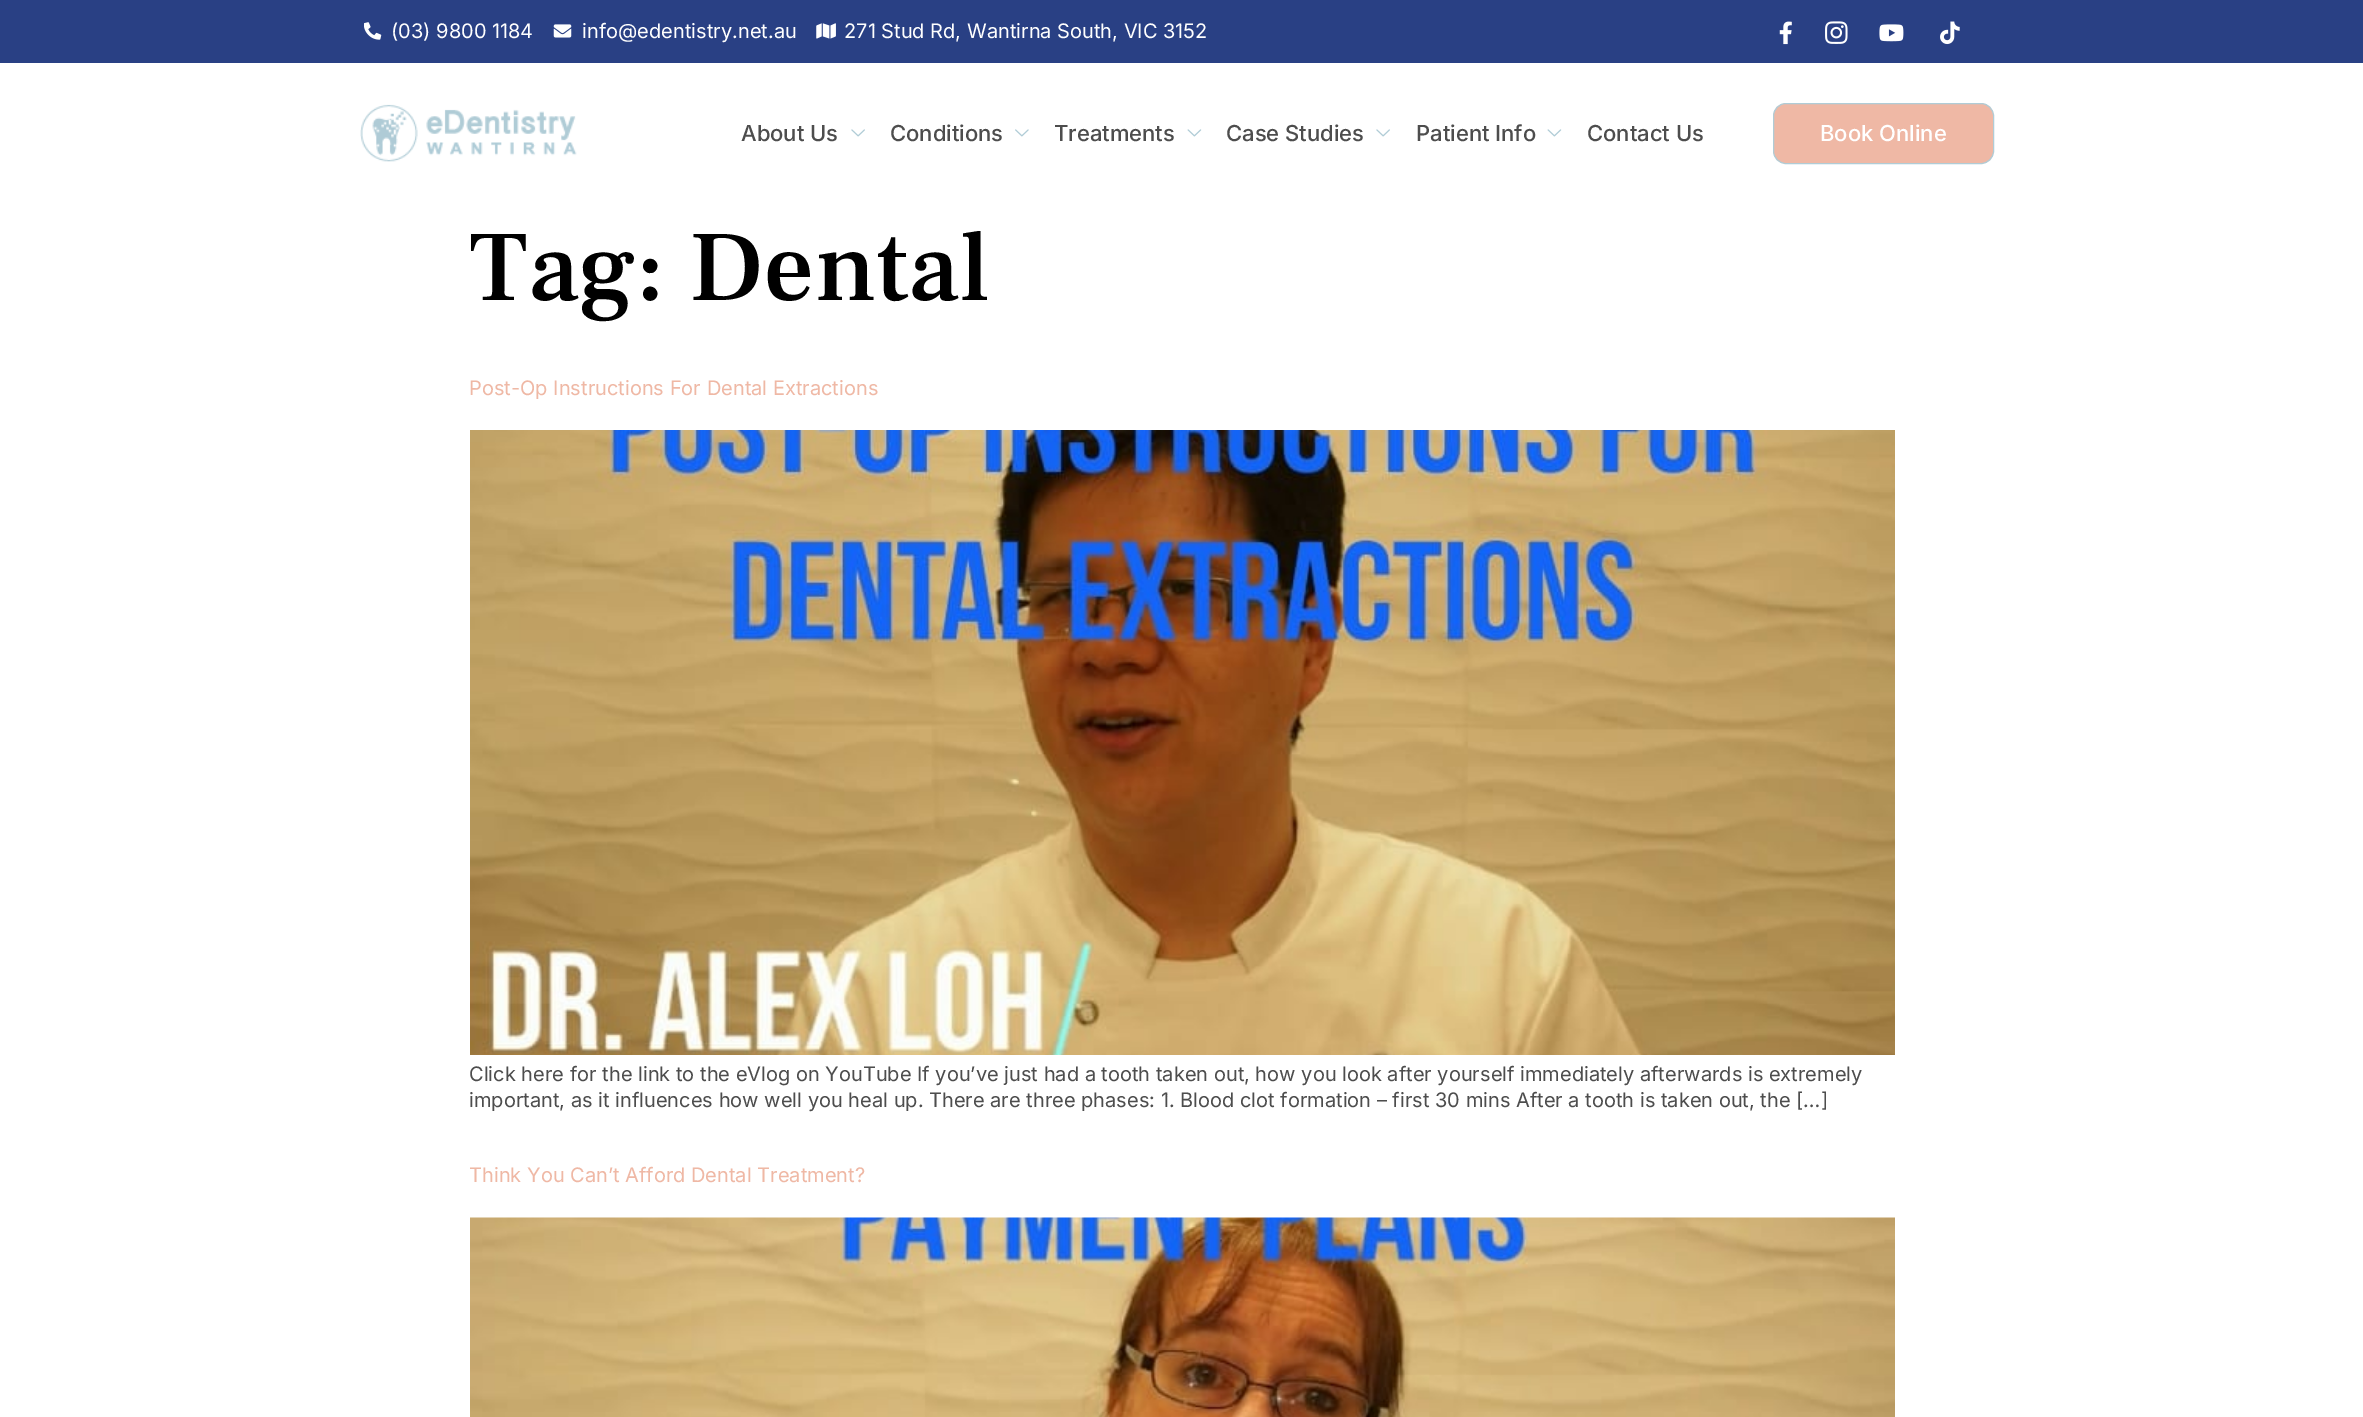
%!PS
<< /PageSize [2363 1417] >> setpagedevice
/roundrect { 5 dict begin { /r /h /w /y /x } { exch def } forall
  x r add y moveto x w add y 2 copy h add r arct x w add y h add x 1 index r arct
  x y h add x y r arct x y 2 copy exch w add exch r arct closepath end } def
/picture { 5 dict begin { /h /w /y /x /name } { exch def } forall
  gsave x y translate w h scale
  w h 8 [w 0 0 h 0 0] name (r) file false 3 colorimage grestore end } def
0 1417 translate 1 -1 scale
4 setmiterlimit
1 setgray
0 0 2363 1417 rectfill
0.161 0.251 0.518 setrgbcolor
0 0 2363 63 rectfill
(img1.rgb) 364 22 18 18 picture
/Inter-Regular [20 0 0 -20 0 0] selectfont
1 setgray
391 38 moveto (\(03\) 9800 1184) show
(img2.rgb) 553 24 19 14 picture
582 38 moveto (info@edentistry.net.au) show
(img3.rgb) 816 23 20 16 picture
844 38 moveto (271 Stud Rd, Wantirna South, VIC 3152) show
(img4.rgb) 1779 21 13 24 picture
(img5.rgb) 1825 21 23 23 picture
(img6.rgb) 1879 24 25 18 picture
(img7.rgb) 1940 21 20 24 picture
(img8.rgb) 360 104 217 58 picture
/Inter-Medium [22 0 0 -22 0 0] selectfont
0.302 setgray
741 141 moveto (About Us) show
(img9.rgb) 851 129 14 8 picture
890 141 moveto (Conditions) show
(img10.rgb) 1015 129 14 8 picture
1054 141 moveto (Treatments) show
(img11.rgb) 1187 129 15 8 picture
1226 141 moveto (Case Studies) show
(img9.rgb) 1376 129 14 8 picture
1416 141 moveto (Patient Info) show
(img11.rgb) 1547 129 15 8 picture
1587 141 moveto (Contact Us) show
0.937 0.722 0.647 setrgbcolor
1773.5 103.5 220 60 12.5 roundrect gsave fill grestore
0.69 0.8 0.839 setrgbcolor
stroke
1 setgray
1820 141 moveto (Book Online) show
/FrankRuhlLibre-Medium [100 0 0 -100 0 0] selectfont
0 setgray
469 300 moveto (Tag: Dental) show
/Inter-Regular [20 0 0 -20 0 0] selectfont
0.937 0.722 0.647 setrgbcolor
469 395 moveto (Post-Op Instructions For Dental Extractions) show
(img12.rgb) 470 430 1425 625 picture
0.302 setgray
469 1081 moveto (Click here for the link to the eVlog on YouTube If you’ve just had a tooth taken out, how you look after yourself immediately afterwards is extremely) show
469 1107 moveto (important, as it influences how well you heal up. There are three phases: 1. Blood clot formation – first 30 mins After a tooth is taken out, the […]) show
0.937 0.722 0.647 setrgbcolor
469 1182 moveto (Think You Can’t Afford Dental Treatment?) show
(img13.rgb) 470 1217 1425 200 picture
showpage
